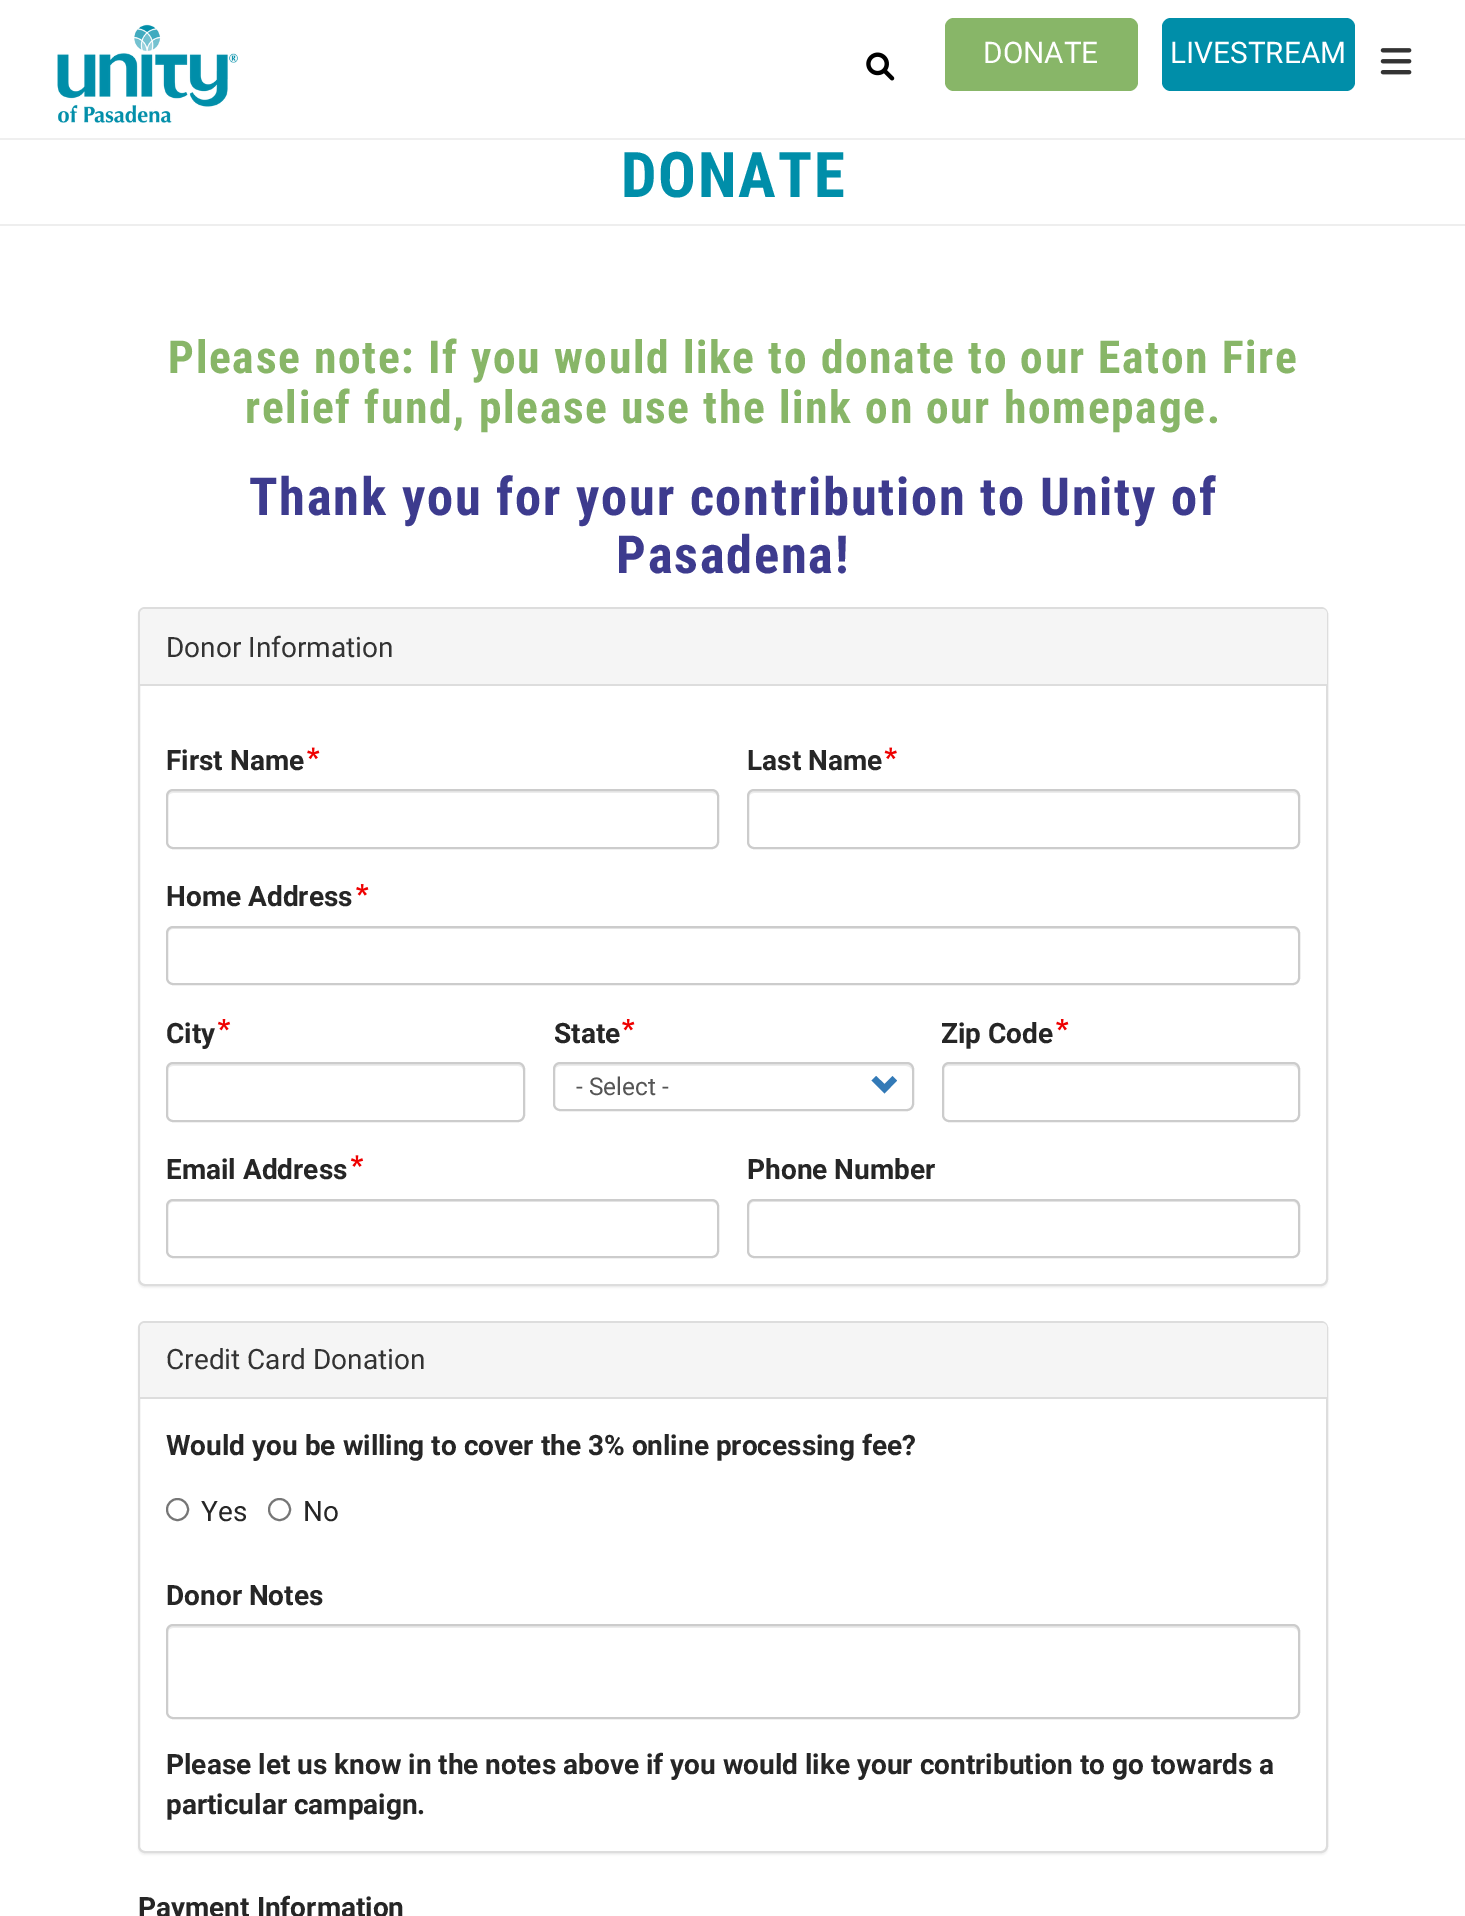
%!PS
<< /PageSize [1465 1916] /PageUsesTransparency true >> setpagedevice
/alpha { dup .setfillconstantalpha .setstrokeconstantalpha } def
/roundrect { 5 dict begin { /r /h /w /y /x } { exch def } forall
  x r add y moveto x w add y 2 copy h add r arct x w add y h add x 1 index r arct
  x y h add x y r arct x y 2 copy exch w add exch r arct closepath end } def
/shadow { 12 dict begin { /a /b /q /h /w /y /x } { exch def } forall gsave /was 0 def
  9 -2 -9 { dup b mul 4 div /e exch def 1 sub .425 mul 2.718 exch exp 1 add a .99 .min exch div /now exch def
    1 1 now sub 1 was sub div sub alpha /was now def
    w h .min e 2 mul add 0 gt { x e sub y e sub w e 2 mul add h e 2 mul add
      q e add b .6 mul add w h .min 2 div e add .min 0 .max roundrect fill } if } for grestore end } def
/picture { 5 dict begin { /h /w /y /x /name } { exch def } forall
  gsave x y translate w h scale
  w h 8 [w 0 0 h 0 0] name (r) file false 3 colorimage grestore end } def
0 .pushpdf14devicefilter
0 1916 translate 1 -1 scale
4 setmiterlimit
1 setgray
0 0 1465 1916 rectfill
0.937 setgray
0 138 1465 2 rectfill
(img1.rgb) 57 24 181 99 picture
(img2.rgb) 866 52 29 29 picture
0.533 0.714 0.408 setrgbcolor
945 18 193 73 9 roundrect fill
/Roboto-Regular [29.75 0 0 -29.75 0 0] selectfont
1 setgray
983 63 moveto (DONATE) show
0 0.557 0.663 setrgbcolor
1162 18 193 73 9 roundrect fill
1 setgray
1170 63 moveto (LIVESTREAM) show
(img3.rgb) 1380 48 32 27 picture
0.933 setgray
0 224 1465 2 rectfill
/RobotoCondensed-Bold [63 0 0 -63 0 0] selectfont
0 0.557 0.663 setrgbcolor
621 197 moveto 1.75 0 (DONATE) ashow
/RobotoCondensed-Bold [45.5 0 0 -45.5 0 0] selectfont
0.533 0.714 0.408 setrgbcolor
168 373 moveto 1.75 0 (Please note: If you would like to donate to our Eaton Fire) ashow
245 423 moveto 1.75 0 (relief fund, please use the link on our homepage.) ashow
/RobotoCondensed-Bold [52.5 0 0 -52.5 0 0] selectfont
0.239 0.231 0.557 setrgbcolor
249 515 moveto 1.75 0 (Thank you for your contribution to Unity of) ashow
616 573 moveto 1.75 0 (Pasadena!) ashow
0 setgray
138 609 1190 679 7 1 0.05 shadow
1 setgray
139 608 1188 677 6 roundrect gsave fill grestore
0.867 setgray
2 setlinewidth
stroke
0.961 setgray
newpath 145 609 moveto 1322 609 lineto 1325 609 1327 611 1327 614 curveto 1327 686 lineto 140 686 lineto 140 614 lineto 140 611 142 609 145 609 curveto closepath fill
0.867 setgray
140 684 1187 2 rectfill
/Roboto-Regular [28 0 0 -28 0 0] selectfont
0.2 setgray
166 657 moveto (Donor Information) show
/Roboto-Bold [28 0 0 -28 0 0] selectfont
0.149 setgray
166 770 moveto (First Name) show
(img4.rgb) 307 747 13 13 picture
0.925 setgray
newpath 173 793 moveto 712 793 lineto 715 793 718 795 718 798 curveto 718 796 lineto 718 793 716 791 713 791 curveto 173 791 lineto 170 791 168 793 168 796 curveto 168 798 lineto 168 795 170 793 173 793 curveto closepath fill
0.8 setgray
167 790 551 58 6 roundrect stroke
0.149 setgray
747 770 moveto (Last Name) show
(img5.rgb) 884 747 13 13 picture
0.925 setgray
newpath 754 793 moveto 1293 793 lineto 1296 793 1298 795 1298 798 curveto 1298 845 lineto 1299 844 1299 843 1299 842 curveto 1299 796 lineto 1299 793 1297 791 1294 791 curveto 754 791 lineto 751 791 749 793 749 796 curveto 749 798 lineto 749 795 751 793 754 793 curveto closepath fill
0.8 setgray
748 790 551 58 6 roundrect stroke
0.149 setgray
166 906 moveto (Home Address) show
(img6.rgb) 356 884 13 12 picture
0.925 setgray
newpath 173 929 moveto 1293 929 lineto 1296 929 1298 932 1298 934 curveto 1298 980 lineto 1297 983 lineto 1298 982 1299 980 1299 979 curveto 1299 933 lineto 1299 930 1297 928 1294 928 curveto 173 928 lineto 170 928 168 930 168 933 curveto 168 934 lineto 168 932 170 929 173 929 curveto closepath fill
0.8 setgray
167 927 1132 57 6 roundrect stroke
0.149 setgray
166 1043 moveto (City) show
(img7.rgb) 217 1019 14 12 picture
0.925 setgray
newpath 173 1066 moveto 518 1066 lineto 521 1066 523 1068 523 1071 curveto 523 1068 522 1064 518 1064 curveto 173 1064 lineto 169 1064 168 1068 168 1071 curveto 168 1068 170 1066 173 1066 curveto closepath fill
0.8 setgray
167 1063 357 58 6 roundrect stroke
0.149 setgray
554 1043 moveto (State) show
(img8.rgb) 622 1019 13 12 picture
0.925 setgray
newpath 560 1066 moveto 906 1066 lineto 909 1066 912 1068 912 1071 curveto 912 1068 911 1064 907 1064 curveto 560 1064 lineto 556 1064 555 1068 555 1071 curveto 555 1068 557 1066 560 1066 curveto closepath fill
0.8 setgray
554 1063 359 47 6 roundrect stroke
/Roboto-Regular [24.5 0 0 -24.5 0 0] selectfont
0.333 setgray
576 1095 moveto (- Select -) show
0.2 0.478 0.718 setrgbcolor
newpath 897 1080.5 moveto 884.5 1093.5 lineto 871.5 1080.5 lineto 876 1076 lineto 884.5 1084 lineto 892.5 1076 lineto closepath fill
/Roboto-Bold [28 0 0 -28 0 0] selectfont
0.149 setgray
941 1043 moveto (Zip Code) show
(img8.rgb) 1056 1019 13 12 picture
0.925 setgray
newpath 948 1066 moveto 1293 1066 lineto 1296 1066 1298 1068 1298 1071 curveto 1298 1116 lineto 1298 1119 lineto 1298 1118 1299 1116 1299 1115 curveto 1299 1069 lineto 1299 1066 1297 1064 1294 1064 curveto 948 1064 lineto 945 1064 943 1066 943 1069 curveto 943 1071 lineto 943 1068 946 1066 948 1066 curveto closepath fill
0.8 setgray
943 1063 356 58 6 roundrect stroke
0.149 setgray
166 1179 moveto (Email Address) show
(img9.rgb) 350 1155 14 12 picture
0.925 setgray
newpath 173 1202 moveto 712 1202 lineto 715 1202 718 1205 718 1208 curveto 718 1206 lineto 718 1203 716 1201 713 1201 curveto 173 1201 lineto 170 1201 168 1203 168 1206 curveto 168 1208 lineto 168 1205 170 1202 173 1202 curveto closepath fill
0.8 setgray
167 1200 551 57 6 roundrect stroke
0.149 setgray
747 1179 moveto (Phone Number) show
0.925 setgray
newpath 754 1202 moveto 1293 1202 lineto 1296 1202 1298 1205 1298 1208 curveto 1298 1253 lineto 1297 1256 lineto 1298 1255 1299 1253 1299 1252 curveto 1299 1206 lineto 1299 1203 1297 1201 1294 1201 curveto 754 1201 lineto 751 1201 749 1203 749 1206 curveto 749 1208 lineto 749 1205 751 1202 754 1202 curveto closepath fill
0.8 setgray
748 1200 551 57 6 roundrect stroke
0 setgray
138 1323 1190 532 7 1 0.05 shadow
1 setgray
139 1322 1188 530 6 roundrect gsave fill grestore
0.867 setgray
stroke
0.961 setgray
newpath 145 1323 moveto 1322 1323 lineto 1325 1323 1327 1325 1327 1328 curveto 1327 1398 lineto 140 1398 lineto 140 1328 lineto 140 1325 142 1323 145 1323 curveto closepath fill
0.867 setgray
140 1397 1187 2 rectfill
/Roboto-Regular [28 0 0 -28 0 0] selectfont
0.2 setgray
166 1369 moveto (Credit Card Donation) show
/Roboto-Bold [28 0 0 -28 0 0] selectfont
0.149 setgray
166 1455 moveto (Would you be willing to cover the 3% online processing fee?) show
0.463 setgray
newpath 177.5 1509.5 10.5 0 360 arc closepath stroke
/Roboto-Regular [28 0 0 -28 0 0] selectfont
0.149 setgray
201 1521 moveto (Yes) show
0.463 setgray
newpath 279.5 1509.5 10.5 0 360 arc closepath stroke
0.149 setgray
303 1521 moveto (No) show
/Roboto-Bold [28 0 0 -28 0 0] selectfont
166 1605 moveto (Donor Notes) show
0.925 setgray
newpath 173 1628 moveto 1293 1628 lineto 1296 1628 1298 1630 1298 1633 curveto 1298 1713 lineto 1297 1716 lineto 1298 1715 1299 1713 1299 1712 curveto 1299 1631 lineto 1299 1628 1297 1626 1294 1626 curveto 173 1626 lineto 170 1626 168 1628 168 1631 curveto 168 1633 lineto 168 1630 170 1628 173 1628 curveto closepath fill
0.8 setgray
167 1625 1132 93 6 roundrect stroke
0.149 setgray
166 1774 moveto (Please let us know in the notes above if you would like your contribution to go towards a) show
166 1814 moveto (particular campaign.) show
138 1917 moveto (Payment Information) show
.poppdf14devicefilter showpage
